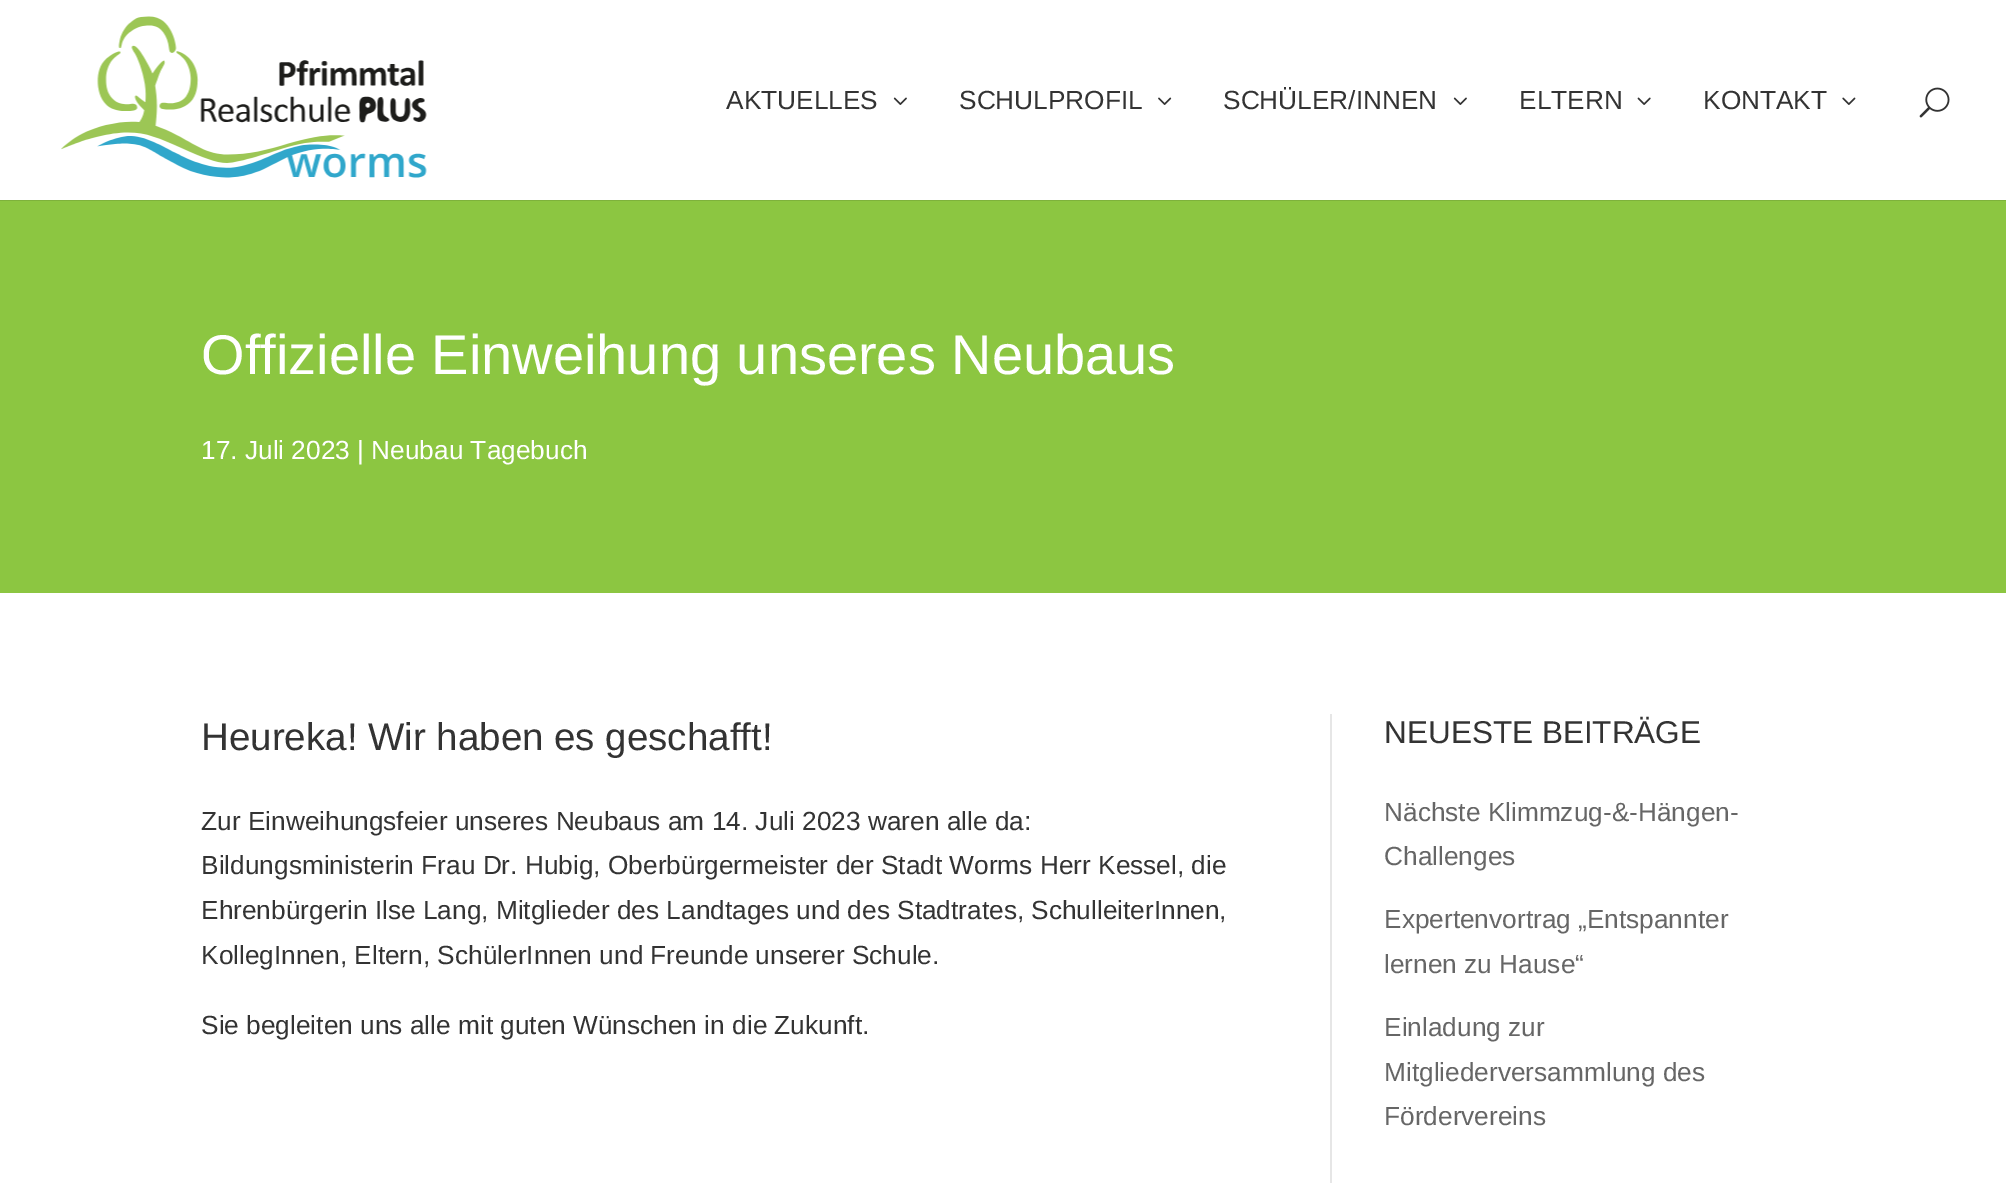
%!PS
<< /PageSize [2006 1183] >> setpagedevice
/picture { 5 dict begin { /h /w /y /x /name } { exch def } forall
  gsave x y translate w h scale
  w h 8 [w 0 0 h 0 0] name (r) file false 3 colorimage grestore end } def
0 1183 translate 1 -1 scale
4 setmiterlimit
1 setgray
0 0 2006 1183 rectfill
0.494 0.698 0.231 setrgbcolor
0 200 2006 1 rectfill
(img1.rgb) 61 16 366 162 picture
/LiberationSans-Regular [26.25 0 0 -26.25 0 0] selectfont
0.2 setgray
726 109 moveto (AKTUELLES) show
(img2.rgb) 893 97 14 8 picture
959 109 moveto (SCHULPROFIL) show
(img3.rgb) 1158 97 14 8 picture
1223 109 moveto (SCHÜLER/INNEN) show
(img2.rgb) 1453 97 14 8 picture
1519 109 moveto (ELTERN) show
(img4.rgb) 1637 97 14 8 picture
1703 109 moveto (KONTAKT) show
(img5.rgb) 1842 97 14 8 picture
(img6.rgb) 1919 87 31 31 picture
0.549 0.776 0.255 setrgbcolor
0 201 2006 392 rectfill
/LiberationSans-Regular [56 0 0 -56 0 0] selectfont
1 setgray
201 374 moveto (Offizielle Einweihung unseres Neubaus) show
/LiberationSans-Regular [26.25 0 0 -26.25 0 0] selectfont
201 459 moveto (17. Juli 2023 | Neubau Tagebuch) show
/LiberationSans-Regular [38.5 0 0 -38.5 0 0] selectfont
0.2 setgray
201 750 moveto (Heureka! Wir haben es geschafft!) show
/LiberationSans-Regular [26.25 0 0 -26.25 0 0] selectfont
201 830 moveto (Zur Einweihungsfeier unseres Neubaus am 14. Juli 2023 waren alle da:) show
201 874 moveto (Bildungsministerin Frau Dr. Hubig, Oberbürgermeister der Stadt Worms Herr Kessel, die) show
201 919 moveto (Ehrenbürgerin Ilse Lang, Mitglieder des Landtages und des Stadtrates, SchulleiterInnen,) show
201 964 moveto (KollegInnen, Eltern, SchülerInnen und Freunde unserer Schule.) show
201 1034 moveto (Sie begleiten uns alle mit guten Wünschen in die Zukunft.) show
0.902 setgray
1330 714 2 469 rectfill
/LiberationSans-Regular [31.5 0 0 -31.5 0 0] selectfont
0.2 setgray
1384 743 moveto (NEUESTE BEITRÄGE) show
/LiberationSans-Regular [26.25 0 0 -26.25 0 0] selectfont
0.4 setgray
1384 821 moveto (Nächste Klimmzug-&-Hängen-) show
1384 865 moveto (Challenges) show
1384 928 moveto (Expertenvortrag „Entspannter) show
1384 973 moveto (lernen zu Hause“) show
1384 1036 moveto (Einladung zur) show
1384 1081 moveto (Mitgliederversammlung des) show
1384 1125 moveto (Fördervereins) show
showpage
